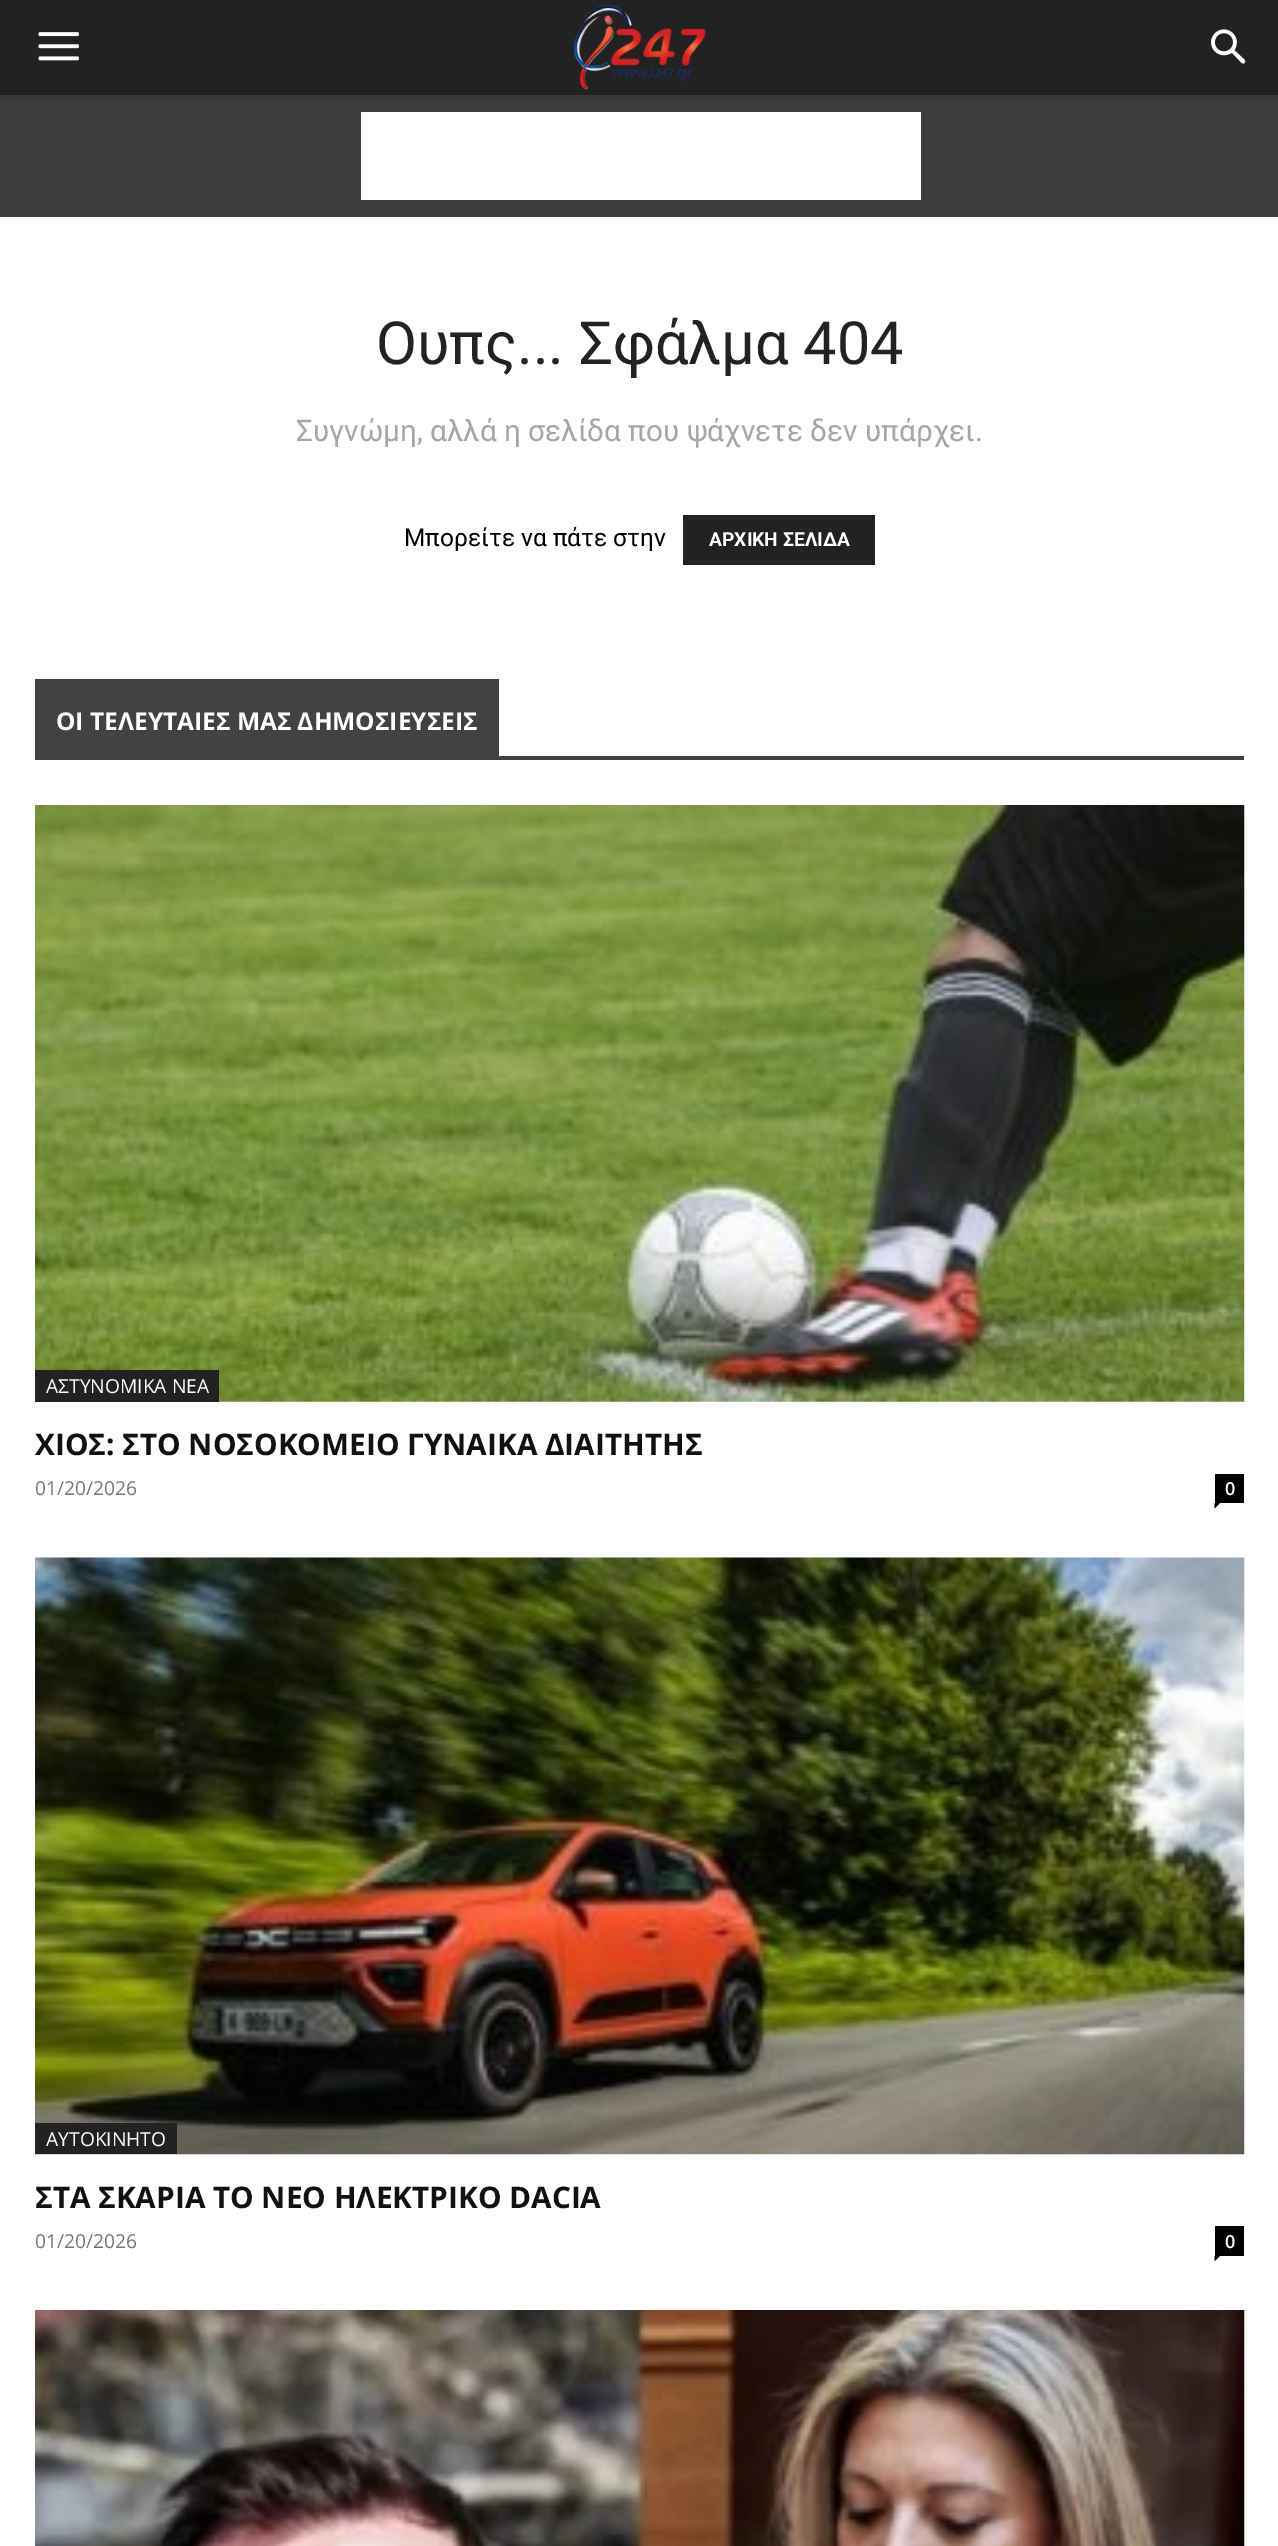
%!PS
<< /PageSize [1278 2546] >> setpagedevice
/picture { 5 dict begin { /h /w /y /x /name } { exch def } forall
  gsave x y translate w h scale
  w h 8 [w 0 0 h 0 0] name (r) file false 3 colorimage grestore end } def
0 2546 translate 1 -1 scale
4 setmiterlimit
1 setgray
0 0 1278 2546 rectfill
0.133 setgray
0 0 1278 95 rectfill
(img1.rgb) 38 32 41 29 picture
(img2.rgb) 574 5 132 85 picture
(img3.rgb) 1211 29 35 35 picture
0.22 setgray
0 95 1278 4 rectfill
0.239 setgray
0 99 1278 118 rectfill
1 setgray
361 112 560 88 rectfill
/Roboto-Regular [59.5 0 0 -59.5 0 0] selectfont
0.133 setgray
376 364 moveto (Ουπς... Σφάλμα 404) show
/Roboto-Regular [29.75 0 0 -29.75 0 0] selectfont
0.651 setgray
296 441 moveto (Συγνώμη, αλλά η σελίδα που ψάχνετε δεν υπάρχει.) show
/Roboto-Regular [24.5 0 0 -24.5 0 0] selectfont
0 setgray
404 546 moveto (Μπορείτε να πάτε στην) show
0.133 setgray
683 515 192 50 rectfill
/Roboto-Bold [19.25 0 0 -19.25 0 0] selectfont
1 setgray
709 546 moveto (ΑΡΧΙΚΗ ΣΕΛΙΔΑ) show
0.259 setgray
35 756 1209 4 rectfill
35 679 464 77 rectfill
/OpenSans-Bold [24.5 0 0 -24.5 0 0] selectfont
1 setgray
56 730 moveto (ΟΙ ΤΕΛΕΥΤΑΙΕΣ ΜΑΣ ΔΗΜΟΣΙΕΥΣΕΙΣ) show
(img4.rgb) 35 805 1210 597 picture
0.133 setgray
35 1370 184 32 rectfill
/OpenSans-Regular [19.25 0 0 -19.25 0 0] selectfont
1 setgray
46 1393 moveto (ΑΣΤΥΝΟΜΙΚΑ ΝΕΑ) show
/OpenSans-Bold [29.75 0 0 -29.75 0 0] selectfont
0.067 setgray
35 1455 moveto (ΧΙΟΣ: ΣΤΟ ΝΟΣΟΚΟΜΕΙΟ ΓΥΝΑΙΚΑ ΔΙΑΙΤΗΤΗΣ) show
/OpenSans-Regular [19.25 0 0 -19.25 0 0] selectfont
0.463 setgray
35 1495 moveto (01/20/2026) show
0 setgray
1215 1474 29 29 rectfill
/OpenSans-SemiBold [18 0 0 -18 0 0] selectfont
1 setgray
1225 1495 moveto (0) show
0 setgray
newpath 1214.5 1503 moveto 1220 1503 lineto 1214.5 1508.5 lineto closepath fill
(img5.rgb) 35 1557 1210 598 picture
0.133 setgray
35 2123 142 31 rectfill
/OpenSans-Regular [19.25 0 0 -19.25 0 0] selectfont
1 setgray
46 2146 moveto (ΑΥΤΟΚΙΝΗΤΟ) show
/OpenSans-Bold [29.75 0 0 -29.75 0 0] selectfont
0.067 setgray
35 2208 moveto (ΣΤΑ ΣΚΑΡΙΑ ΤΟ ΝΕΟ ΗΛΕΚΤΡΙΚΟ DACIA) show
/OpenSans-Regular [19.25 0 0 -19.25 0 0] selectfont
0.463 setgray
35 2248 moveto (01/20/2026) show
0 setgray
1215 2226 29 30 rectfill
/OpenSans-SemiBold [18 0 0 -18 0 0] selectfont
1 setgray
1225 2248 moveto (0) show
0 setgray
newpath 1214.5 2256 moveto 1220 2256 lineto 1214.5 2261 lineto closepath fill
(img6.rgb) 35 2310 1210 236 picture
showpage
